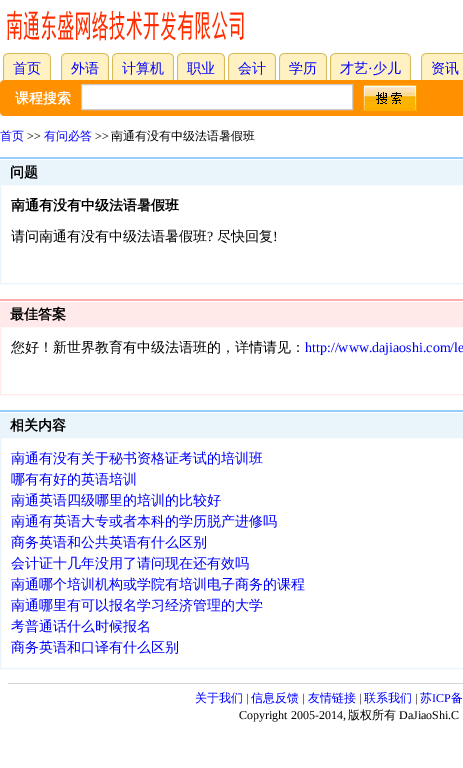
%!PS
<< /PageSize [463 768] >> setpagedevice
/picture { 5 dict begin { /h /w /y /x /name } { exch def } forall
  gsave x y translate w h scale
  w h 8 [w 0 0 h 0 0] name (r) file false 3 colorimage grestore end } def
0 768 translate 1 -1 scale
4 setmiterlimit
1 setgray
0 0 463 768 rectfill
(img1.rgb) 7 10 237 31 picture
(img2.rgb) 3 53 43 27 picture
(img3.rgb) 46 53 5 27 picture
/WenQuanYiZenHei-Medium [14 0 0 -14 0 0] selectfont
0 0 1 setrgbcolor
13 73 moveto (首页) show
(img2.rgb) 61 53 43 27 picture
(img3.rgb) 104 53 5 27 picture
71 73 moveto (外语) show
(img4.rgb) 112 53 57 27 picture
(img3.rgb) 169 53 5 27 picture
122 73 moveto (计算机) show
(img2.rgb) 177 53 43 27 picture
(img3.rgb) 220 53 5 27 picture
187 73 moveto (职业) show
(img2.rgb) 228 53 43 27 picture
(img3.rgb) 271 53 5 27 picture
238 73 moveto (会计) show
(img2.rgb) 279 53 43 27 picture
(img3.rgb) 322 53 5 27 picture
289 73 moveto (学历) show
(img5.rgb) 330 53 76 27 picture
(img3.rgb) 406 53 5 27 picture
340 73 moveto (才艺) show
/LiberationSerif-Regular [14 0 0 -14 0 0] selectfont
368 73 moveto (·) show
/WenQuanYiZenHei-Medium [14 0 0 -14 0 0] selectfont
373 73 moveto (少儿) show
(img6.rgb) 421 53 42 27 picture
431 73 moveto (资讯) show
1 0.565 0 setrgbcolor
4 80 459 36 rectfill
(img7.rgb) 0 80 4 36 picture
/WenQuanYiZenHei-Bold [14 0 0 -14 0 0] selectfont
1 setgray
15 103 moveto (课程搜索) show
newpath 81.5 84.5 moveto 352.5 84.5 lineto 352.5 109.5 lineto 81.5 109.5 lineto closepath gsave fill grestore
0.8 setgray
stroke
(img8.rgb) 363 85 54 26 picture
/WenQuanYiZenHei-Medium [12 0 0 -12 0 0] selectfont
0 0 1 setrgbcolor
0 140 moveto (首页) show
/LiberationSerif-Regular [12 0 0 -12 0 0] selectfont
0 setgray
27 140 moveto (>>) show
/WenQuanYiZenHei-Medium [12 0 0 -12 0 0] selectfont
0 0 1 setrgbcolor
44 140 moveto (有问必答) show
/LiberationSerif-Regular [12 0 0 -12 0 0] selectfont
0 setgray
95 140 moveto (>>) show
/WenQuanYiZenHei-Medium [12 0 0 -12 0 0] selectfont
111 140 moveto (南通有没有中级法语暑假班) show
(img9.rgb) 0 157 463 27 picture
/WenQuanYiZenHei-Bold [14 0 0 -14 0 0] selectfont
10 177 moveto (问题) show
0.918 0.957 0.984 setrgbcolor
0.5 184.5 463 99 rectstroke
0 setgray
11 210 moveto (南通有没有中级法语暑假班) show
/WenQuanYiZenHei-Medium [14 0 0 -14 0 0] selectfont
11 241 moveto (请问南通有没有中级法语暑假班) show
/LiberationSerif-Regular [14 0 0 -14 0 0] selectfont
207 241 moveto (?) show
/WenQuanYiZenHei-Medium [14 0 0 -14 0 0] selectfont
217 241 moveto (尽快回复) show
/LiberationSerif-Regular [14 0 0 -14 0 0] selectfont
273 241 moveto (!) show
(img10.rgb) 0 299 463 27 picture
/WenQuanYiZenHei-Bold [14 0 0 -14 0 0] selectfont
10 319 moveto (最佳答案) show
1 0.914 0.914 setrgbcolor
0.5 326.5 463 68 rectstroke
/WenQuanYiZenHei-Medium [14 0 0 -14 0 0] selectfont
0 setgray
11 352 moveto (您好！新世界教育有中级法语班的，详情请见：) show
/LiberationSerif-Regular [14 0 0 -14 0 0] selectfont
0 0 1 setrgbcolor
305 352 moveto (http://www.dajiaoshi.com/le) show
(img9.rgb) 0 410 463 27 picture
/WenQuanYiZenHei-Bold [14 0 0 -14 0 0] selectfont
0 setgray
10 430 moveto (相关内容) show
0.918 0.957 0.984 setrgbcolor
0.5 437.5 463 231 rectstroke
/WenQuanYiZenHei-Medium [14 0 0 -14 0 0] selectfont
0 0 1 setrgbcolor
11 463 moveto (南通有没有关于秘书资格证考试的培训班) show
11 484 moveto (哪有有好的英语培训) show
11 505 moveto (南通英语四级哪里的培训的比较好) show
11 526 moveto (南通有英语大专或者本科的学历脱产进修吗) show
11 547 moveto (商务英语和公共英语有什么区别) show
11 568 moveto (会计证十几年没用了请问现在还有效吗) show
11 589 moveto (南通哪个培训机构或学院有培训电子商务的课程) show
11 610 moveto (南通哪里有可以报名学习经济管理的大学) show
11 631 moveto (考普通话什么时候报名) show
11 652 moveto (商务英语和口译有什么区别) show
0.82 0.843 0.863 setrgbcolor
8 683 455 1 rectfill
/WenQuanYiZenHei-Medium [12 0 0 -12 0 0] selectfont
0 0 1 setrgbcolor
195 702 moveto (关于我们) show
/LiberationSerif-Regular [12 0 0 -12 0 0] selectfont
0 setgray
246 702 moveto (|) show
/WenQuanYiZenHei-Medium [12 0 0 -12 0 0] selectfont
0 0 1 setrgbcolor
251 702 moveto (信息反馈) show
/LiberationSerif-Regular [12 0 0 -12 0 0] selectfont
0 setgray
302 702 moveto (|) show
/WenQuanYiZenHei-Medium [12 0 0 -12 0 0] selectfont
0 0 1 setrgbcolor
308 702 moveto (友情链接) show
/LiberationSerif-Regular [12 0 0 -12 0 0] selectfont
0 setgray
359 702 moveto (|) show
/WenQuanYiZenHei-Medium [12 0 0 -12 0 0] selectfont
0 0 1 setrgbcolor
364 702 moveto (联系我们) show
/LiberationSerif-Regular [12 0 0 -12 0 0] selectfont
0 setgray
415 702 moveto (|) show
/WenQuanYiZenHei-Medium [12 0 0 -12 0 0] selectfont
0 0 1 setrgbcolor
420 702 moveto (苏) show
/LiberationSerif-Regular [12 0 0 -12 0 0] selectfont
432 702 moveto (ICP) show
/WenQuanYiZenHei-Medium [12 0 0 -12 0 0] selectfont
451 702 moveto (备) show
/LiberationSerif-Regular [12 0 0 -12 0 0] selectfont
0 setgray
239 719 moveto (Copyright 2005-2014,) show
/WenQuanYiZenHei-Medium [12 0 0 -12 0 0] selectfont
348 719 moveto (版权所有) show
/LiberationSerif-Regular [12 0 0 -12 0 0] selectfont
399 719 moveto (DaJiaoShi.C) show
showpage
